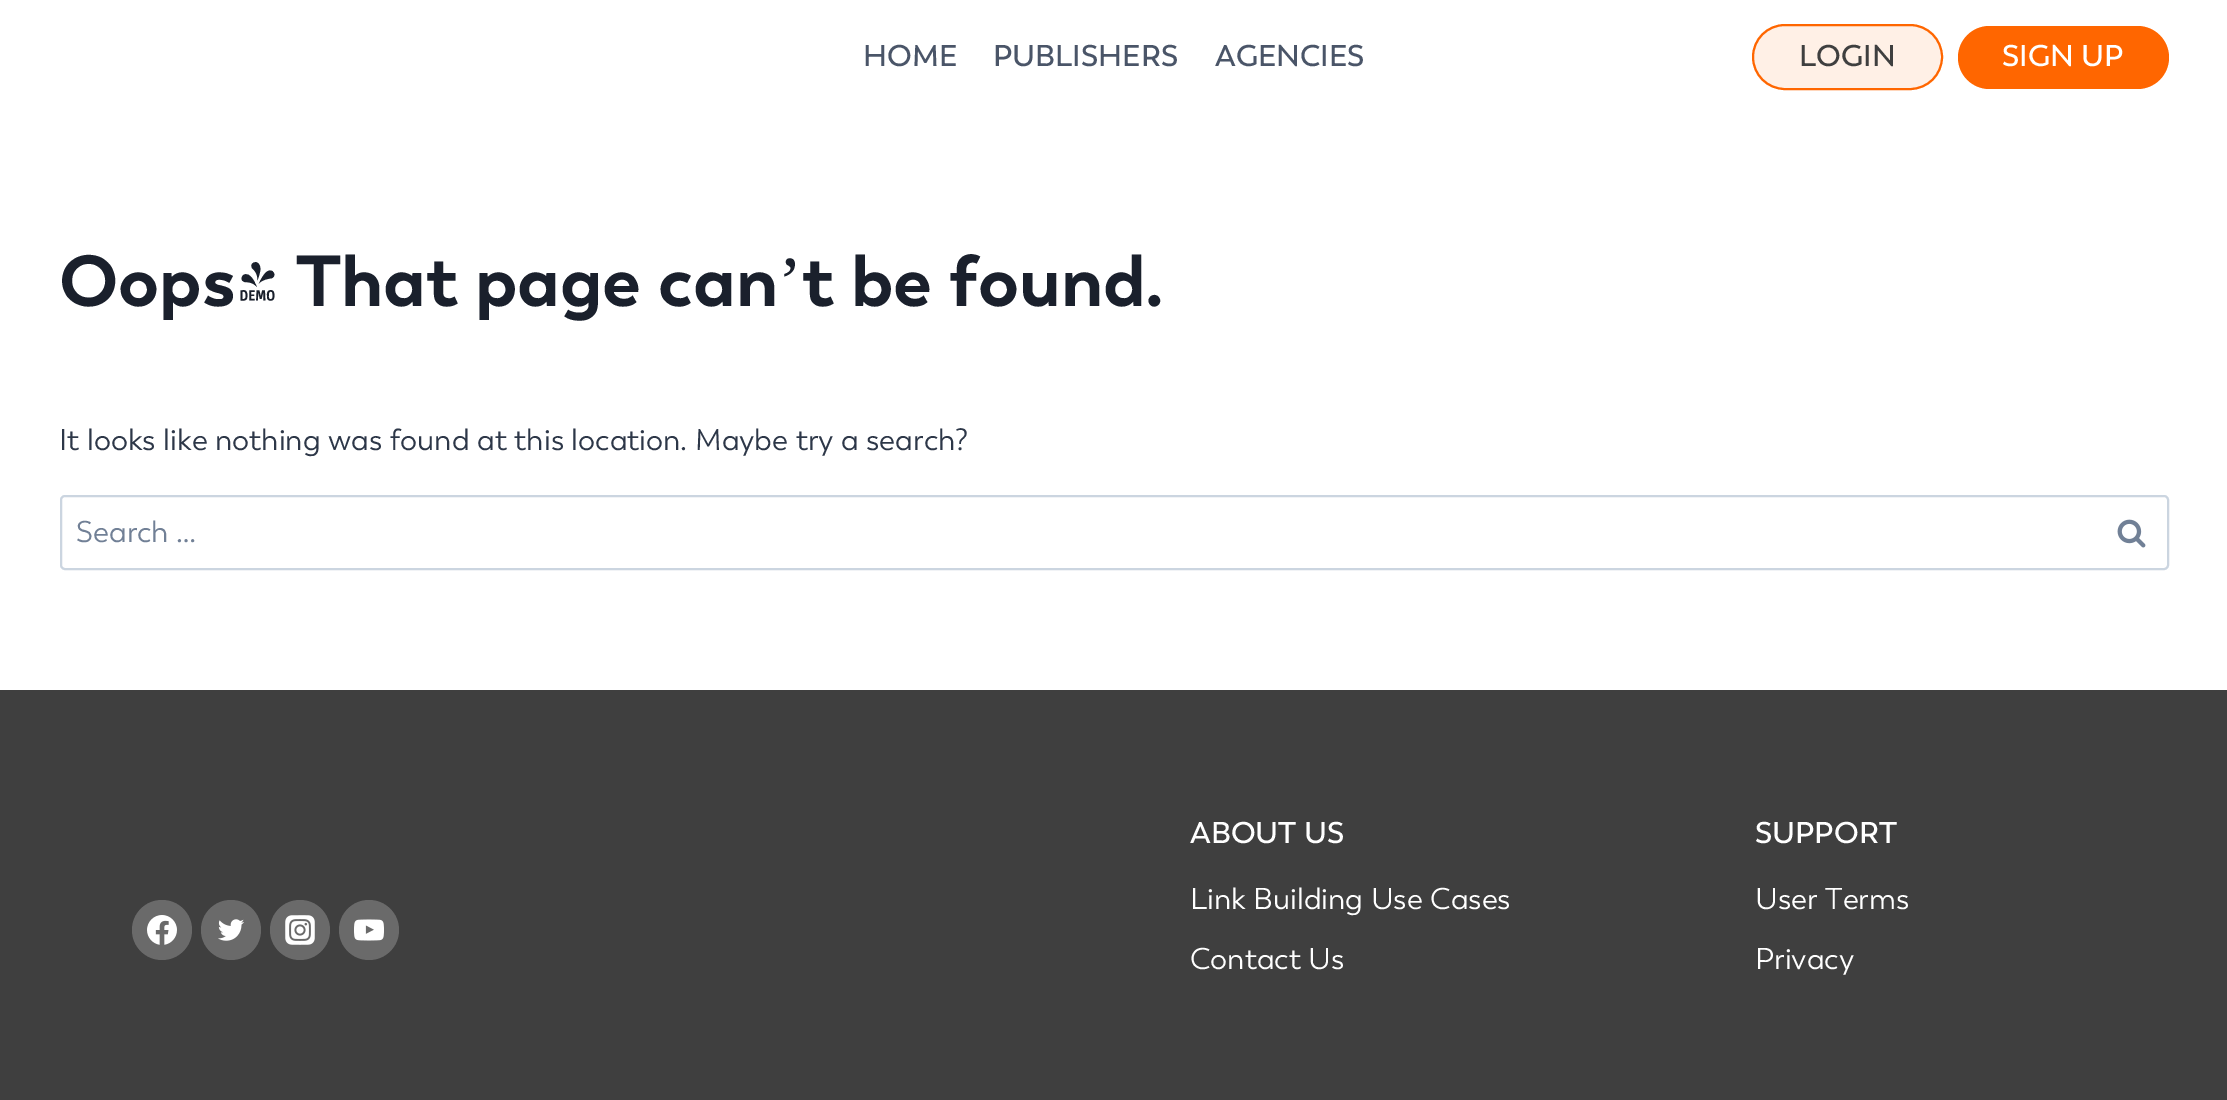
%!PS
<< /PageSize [2227 1100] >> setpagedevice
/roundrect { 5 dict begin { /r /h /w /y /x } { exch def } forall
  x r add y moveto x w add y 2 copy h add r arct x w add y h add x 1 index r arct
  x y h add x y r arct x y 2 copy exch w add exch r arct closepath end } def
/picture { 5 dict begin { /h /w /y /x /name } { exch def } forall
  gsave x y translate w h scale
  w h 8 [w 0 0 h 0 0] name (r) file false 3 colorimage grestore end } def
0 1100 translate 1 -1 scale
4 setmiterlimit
1 setgray
0 0 2227 1100 rectfill
/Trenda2-SemiBold [30 0 0 -30 0 0] selectfont
0.29 0.333 0.408 setrgbcolor
863 66 moveto (HOME) show
993 66 moveto (PUBLISHERS) show
1215 66 moveto (AGENCIES) show
1 0.941 0.902 setrgbcolor
1753 25 189 64 32 roundrect gsave fill grestore
1 0.4 0 setrgbcolor
2 setlinewidth
stroke
0.247 setgray
1799 66 moveto (LOGIN) show
1 0.4 0 setrgbcolor
1958 26 211 63 31.5 roundrect fill
1 setgray
2002 66 moveto (SIGN UP) show
/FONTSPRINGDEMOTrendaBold-Bold [72 0 0 -72 0 0] selectfont
0.102 0.125 0.173 setrgbcolor
59 306 moveto (Oops! That page can) show
/LiberationSerif-Regular [72 0 0 -72 0 0] selectfont
778 306 moveto (’) show
/FONTSPRINGDEMOTrendaBold-Bold [72 0 0 -72 0 0] selectfont
802 306 moveto (t be found.) show
/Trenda-Regular [30 0 0 -30 0 0] selectfont
0.176 0.216 0.282 setrgbcolor
59 450 moveto (It looks like nothing was found at this location. Maybe try a search?) show
0.796 0.835 0.878 setrgbcolor
61 496 2107 73 4 roundrect stroke
0.443 0.502 0.588 setrgbcolor
76 542 moveto (Search …) show
(img1.rgb) 2117 519 29 29 picture
0.247 setgray
0 690 2227 410 rectfill
0.416 setgray
newpath 162 930 30 0 360 arc closepath fill
(img2.rgb) 147 915 30 30 picture
newpath 231 930 30 0 360 arc closepath fill
(img3.rgb) 218 919 26 22 picture
newpath 300 930 30 0 360 arc closepath fill
(img4.rgb) 285 915 30 30 picture
newpath 369 930 30 0 360 arc closepath fill
(img5.rgb) 354 919 30 22 picture
/Trenda-SemiBold [30 0 0 -30 0 0] selectfont
1 setgray
1190 843 moveto (ABOUT US) show
/Trenda-Regular [30 0 0 -30 0 0] selectfont
1190 909 moveto (Link Building Use Cases) show
1190 969 moveto (Contact Us) show
/Trenda-SemiBold [30 0 0 -30 0 0] selectfont
1755 843 moveto (SUPPORT) show
/Trenda-Regular [30 0 0 -30 0 0] selectfont
1755 909 moveto (User Terms) show
1755 969 moveto (Privacy) show
showpage
